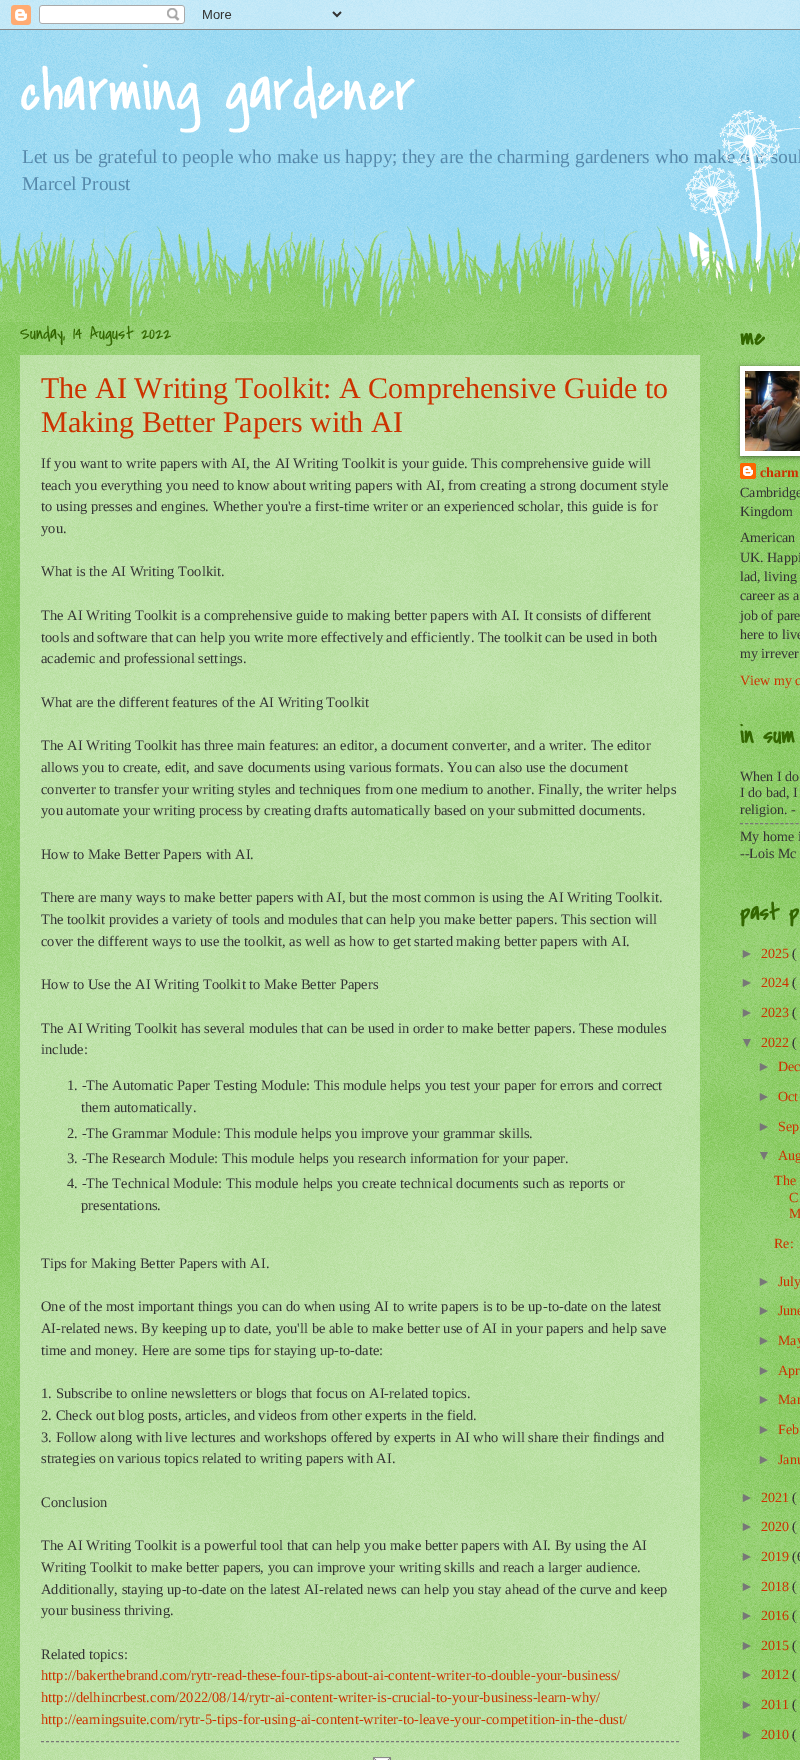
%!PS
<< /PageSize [800 1760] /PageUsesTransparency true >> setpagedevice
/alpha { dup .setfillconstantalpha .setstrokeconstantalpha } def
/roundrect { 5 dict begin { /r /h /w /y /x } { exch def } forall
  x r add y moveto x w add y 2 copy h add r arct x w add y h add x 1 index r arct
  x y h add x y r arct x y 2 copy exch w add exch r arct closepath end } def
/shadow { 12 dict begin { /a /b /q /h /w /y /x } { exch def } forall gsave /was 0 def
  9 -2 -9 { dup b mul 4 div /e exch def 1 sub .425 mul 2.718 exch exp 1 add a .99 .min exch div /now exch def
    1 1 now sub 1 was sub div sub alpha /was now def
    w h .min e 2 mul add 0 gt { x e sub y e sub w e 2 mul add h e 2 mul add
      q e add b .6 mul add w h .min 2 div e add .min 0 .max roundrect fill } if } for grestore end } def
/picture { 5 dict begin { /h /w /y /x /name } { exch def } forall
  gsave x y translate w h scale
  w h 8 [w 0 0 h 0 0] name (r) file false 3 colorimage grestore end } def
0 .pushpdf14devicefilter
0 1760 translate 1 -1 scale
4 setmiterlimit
0.467 0.8 0.933 setrgbcolor
0 0 800 1760 rectfill
(img1.rgb) 0 0 800 317 picture
(img2.rgb) 0 0 800 30 picture
/CoveredByYourGrace-Regular [60 0 0 -60 0 0] selectfont
1 setgray
20 110 moveto (charming gardener) show
/LiberationSerif-Regular [19.3 0 0 -19.3 0 0] selectfont
0.333 0.533 0.667 setrgbcolor
22 163 moveto (Let us be grateful to people who make us happy; they are the charming gardeners who make our soul) show
22 190 moveto (Marcel Proust) show
0.4 0.733 0.2 setrgbcolor
0 322 800 1438 rectfill
(img3.rgb) 0 322 800 1438 picture
(img4.rgb) 680 110 120 191 picture
(img5.rgb) 0 226 800 96 picture
/CoveredByYourGrace-Regular [18 0 0 -18 0 0] selectfont
0.2 0.4 0 setrgbcolor
20 339 moveto (Sunday, 14 August 2022) show
0.4 alpha
1 setgray
20 355 680 1405 rectfill
/LiberationSerif-Regular [30 0 0 -30 0 0] selectfont
1 alpha
0.8 0.2 0 setrgbcolor
41 398 moveto (The AI Writing Toolkit: A Comprehensive Guide to) show
41 432 moveto (Making Better Papers with AI) show
/LiberationSerif-Regular [14.5 0 0 -14.5 0 0] selectfont
0.2 setgray
41 468 moveto (If you want to write papers with AI, the AI Writing Toolkit is your guide. This comprehensive guide will) show
41 490 moveto (teach you everything you need to know about writing papers with AI, from creating a strong document style) show
41 511 moveto (to using presses and engines. Whether you're a first-time writer or an experienced scholar, this guide is for) show
41 533 moveto (you.) show
41 576 moveto (What is the AI Writing Toolkit.) show
41 620 moveto (The AI Writing Toolkit is a comprehensive guide to making better papers with AI. It consists of different) show
41 642 moveto (tools and software that can help you write more effectively and efficiently. The toolkit can be used in both) show
41 663 moveto (academic and professional settings.) show
41 707 moveto (What are the different features of the AI Writing Toolkit) show
41 750 moveto (The AI Writing Toolkit has three main features: an editor, a document converter, and a writer. The editor) show
41 772 moveto (allows you to create, edit, and save documents using various formats. You can also use the document) show
41 794 moveto (converter to transfer your writing styles and techniques from one medium to another. Finally, the writer helps) show
41 815 moveto (you automate your writing process by creating drafts automatically based on your submitted documents.) show
41 859 moveto (How to Make Better Papers with AI.) show
41 902 moveto (There are many ways to make better papers with AI, but the most common is using the AI Writing Toolkit.) show
41 924 moveto (The toolkit provides a variety of tools and modules that can help you make better papers. This section will) show
41 946 moveto (cover the different ways to use the toolkit, as well as how to get started making better papers with AI.) show
41 989 moveto (How to Use the AI Writing Toolkit to Make Better Papers) show
41 1033 moveto (The AI Writing Toolkit has several modules that can be used in order to make better papers. These modules) show
41 1054 moveto (include:) show
67 1090 moveto (1. -The Automatic Paper Testing Module: This module helps you test your paper for errors and correct) show
81 1112 moveto (them automatically.) show
67 1138 moveto (2. -The Grammar Module: This module helps you improve your grammar skills.) show
67 1163 moveto (3. -The Research Module: This module helps you research information for your paper.) show
67 1188 moveto (4. -The Technical Module: This module helps you create technical documents such as reports or) show
81 1210 moveto (presentations.) show
41 1268 moveto (Tips for Making Better Papers with AI.) show
41 1311 moveto (One of the most important things you can do when using AI to write papers is to be up-to-date on the latest) show
41 1333 moveto (AI-related news. By keeping up to date, you'll be able to make better use of AI in your papers and help save) show
41 1355 moveto (time and money. Here are some tips for staying up-to-date:) show
41 1398 moveto (1. Subscribe to online newsletters or blogs that focus on AI-related topics.) show
41 1420 moveto (2. Check out blog posts, articles, and videos from other experts in the field.) show
41 1442 moveto (3. Follow along with live lectures and workshops offered by experts in AI who will share their findings and) show
41 1463 moveto (strategies on various topics related to writing papers with AI.) show
41 1507 moveto (Conclusion) show
41 1550 moveto (The AI Writing Toolkit is a powerful tool that can help you make better papers with AI. By using the AI) show
41 1572 moveto (Writing Toolkit to make better papers, you can improve your writing skills and reach a larger audience.) show
41 1594 moveto (Additionally, staying up-to-date on the latest AI-related news can help you stay ahead of the curve and keep) show
41 1615 moveto (your business thriving.) show
41 1659 moveto (Related topics:) show
0.8 0.2 0 setrgbcolor
41 1680 moveto (http://bakerthebrand.com/rytr-read-these-four-tips-about-ai-content-writer-to-double-your-business/) show
41 1702 moveto (http://delhincrbest.com/2022/08/14/rytr-ai-content-writer-is-crucial-to-your-business-learn-why/) show
41 1724 moveto (http://earningsuite.com/rytr-5-tips-for-using-ai-content-writer-to-leave-your-competition-in-the-dust/) show
0.467 setgray
[3 2] 0 setdash
newpath 41 1741.5 moveto 679 1741.5 lineto stroke
(img6.rgb) 373 1757 18 3 picture
/CoveredByYourGrace-Bold [24 0 0 -24 0 0] selectfont
0.2 0.4 0 setrgbcolor
740 345 moveto (me) show
(img8.rgb) 740 463 16 16 picture
0 setgray
741 367 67 90 0 2.5 0.5 shadow
1 setgray
740 366 60 90 rectfill
(img7.rgb) 745 371 55 80 picture
/LiberationSerif-Bold [14 0 0 -14 0 0] selectfont
0.8 0.2 0 setrgbcolor
760 477 moveto (charm) show
/LiberationSerif-Regular [14 0 0 -14 0 0] selectfont
0.2 setgray
740 497 moveto (Cambridge) show
740 516 moveto (Kingdom) show
740 542 moveto (American) show
740 562 moveto (UK. Happi) show
740 581 moveto (lad, living) show
740 600 moveto (career as a) show
740 620 moveto (job of pare) show
740 639 moveto (here to live) show
740 658 moveto (my irrever) show
0.8 0.2 0 setrgbcolor
740 685 moveto (View my c) show
/CoveredByYourGrace-Bold [24 0 0 -24 0 0] selectfont
0.2 0.4 0 setrgbcolor
740 743 moveto (in sum) show
/LiberationSerif-Regular [14 0 0 -14 0 0] selectfont
0.2 setgray
740 781 moveto (When I do) show
740 797 moveto (I do bad, I) show
740 814 moveto (religion. -) show
0.467 setgray
[3 2.05] 0 setdash
newpath 740 823.5 moveto 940 823.5 lineto stroke
0.2 setgray
740 841 moveto (My home i) show
740 858 moveto (--Lois Mc) show
/CoveredByYourGrace-Bold [24 0 0 -24 0 0] selectfont
0.2 0.4 0 setrgbcolor
740 920 moveto (past p) show
/LiberationSans-Regular [14 0 0 -14 0 0] selectfont
0.467 setgray
740 958 moveto (►) show
/LiberationSerif-Regular [14 0 0 -14 0 0] selectfont
0.8 0.2 0 setrgbcolor
761 958 moveto (2025) show
0.2 setgray
792 958 moveto (\() show
/LiberationSans-Regular [14 0 0 -14 0 0] selectfont
0.467 setgray
740 987 moveto (►) show
/LiberationSerif-Regular [14 0 0 -14 0 0] selectfont
0.8 0.2 0 setrgbcolor
761 987 moveto (2024) show
0.2 setgray
792 987 moveto (\() show
/LiberationSans-Regular [14 0 0 -14 0 0] selectfont
0.467 setgray
740 1017 moveto (►) show
/LiberationSerif-Regular [14 0 0 -14 0 0] selectfont
0.8 0.2 0 setrgbcolor
761 1017 moveto (2023) show
0.2 setgray
792 1017 moveto (\() show
/LiberationSans-Regular [14 0 0 -14 0 0] selectfont
0.467 setgray
740 1047 moveto (▼) show
/LiberationSerif-Regular [14 0 0 -14 0 0] selectfont
0.8 0.2 0 setrgbcolor
761 1047 moveto (2022) show
0.2 setgray
792 1047 moveto (\() show
/LiberationSans-Regular [14 0 0 -14 0 0] selectfont
0.467 setgray
757 1071 moveto (►) show
/LiberationSerif-Regular [14 0 0 -14 0 0] selectfont
0.8 0.2 0 setrgbcolor
778 1071 moveto (Dec) show
/LiberationSans-Regular [14 0 0 -14 0 0] selectfont
0.467 setgray
757 1101 moveto (►) show
/LiberationSerif-Regular [14 0 0 -14 0 0] selectfont
0.8 0.2 0 setrgbcolor
778 1101 moveto (Oct) show
/LiberationSans-Regular [14 0 0 -14 0 0] selectfont
0.467 setgray
757 1131 moveto (►) show
/LiberationSerif-Regular [14 0 0 -14 0 0] selectfont
0.8 0.2 0 setrgbcolor
778 1131 moveto (Sep) show
/LiberationSans-Regular [14 0 0 -14 0 0] selectfont
0.467 setgray
757 1160 moveto (▼) show
/LiberationSerif-Regular [14 0 0 -14 0 0] selectfont
0.8 0.2 0 setrgbcolor
778 1160 moveto (Aug) show
774 1185 moveto (The) show
789 1202 moveto (C) show
789 1218 moveto (M) show
774 1248 moveto (Re:) show
/LiberationSans-Regular [14 0 0 -14 0 0] selectfont
0.467 setgray
757 1286 moveto (►) show
/LiberationSerif-Regular [14 0 0 -14 0 0] selectfont
0.8 0.2 0 setrgbcolor
778 1286 moveto (July) show
/LiberationSans-Regular [14 0 0 -14 0 0] selectfont
0.467 setgray
757 1315 moveto (►) show
/LiberationSerif-Regular [14 0 0 -14 0 0] selectfont
0.8 0.2 0 setrgbcolor
778 1315 moveto (June) show
/LiberationSans-Regular [14 0 0 -14 0 0] selectfont
0.467 setgray
757 1345 moveto (►) show
/LiberationSerif-Regular [14 0 0 -14 0 0] selectfont
0.8 0.2 0 setrgbcolor
778 1345 moveto (May) show
/LiberationSans-Regular [14 0 0 -14 0 0] selectfont
0.467 setgray
757 1375 moveto (►) show
/LiberationSerif-Regular [14 0 0 -14 0 0] selectfont
0.8 0.2 0 setrgbcolor
778 1375 moveto (Apr) show
/LiberationSans-Regular [14 0 0 -14 0 0] selectfont
0.467 setgray
757 1404 moveto (►) show
/LiberationSerif-Regular [14 0 0 -14 0 0] selectfont
0.8 0.2 0 setrgbcolor
778 1404 moveto (Mar) show
/LiberationSans-Regular [14 0 0 -14 0 0] selectfont
0.467 setgray
757 1434 moveto (►) show
/LiberationSerif-Regular [14 0 0 -14 0 0] selectfont
0.8 0.2 0 setrgbcolor
778 1434 moveto (Feb) show
/LiberationSans-Regular [14 0 0 -14 0 0] selectfont
0.467 setgray
757 1464 moveto (►) show
/LiberationSerif-Regular [14 0 0 -14 0 0] selectfont
0.8 0.2 0 setrgbcolor
778 1464 moveto (Janu) show
/LiberationSans-Regular [14 0 0 -14 0 0] selectfont
0.467 setgray
740 1502 moveto (►) show
/LiberationSerif-Regular [14 0 0 -14 0 0] selectfont
0.8 0.2 0 setrgbcolor
761 1502 moveto (2021) show
0.2 setgray
792 1502 moveto (\() show
/LiberationSans-Regular [14 0 0 -14 0 0] selectfont
0.467 setgray
740 1531 moveto (►) show
/LiberationSerif-Regular [14 0 0 -14 0 0] selectfont
0.8 0.2 0 setrgbcolor
761 1531 moveto (2020) show
0.2 setgray
792 1531 moveto (\() show
/LiberationSans-Regular [14 0 0 -14 0 0] selectfont
0.467 setgray
740 1561 moveto (►) show
/LiberationSerif-Regular [14 0 0 -14 0 0] selectfont
0.8 0.2 0 setrgbcolor
761 1561 moveto (2019) show
0.2 setgray
792 1561 moveto (\(6) show
/LiberationSans-Regular [14 0 0 -14 0 0] selectfont
0.467 setgray
740 1591 moveto (►) show
/LiberationSerif-Regular [14 0 0 -14 0 0] selectfont
0.8 0.2 0 setrgbcolor
761 1591 moveto (2018) show
0.2 setgray
792 1591 moveto (\() show
/LiberationSans-Regular [14 0 0 -14 0 0] selectfont
0.467 setgray
740 1620 moveto (►) show
/LiberationSerif-Regular [14 0 0 -14 0 0] selectfont
0.8 0.2 0 setrgbcolor
761 1620 moveto (2016) show
0.2 setgray
792 1620 moveto (\() show
/LiberationSans-Regular [14 0 0 -14 0 0] selectfont
0.467 setgray
740 1650 moveto (►) show
/LiberationSerif-Regular [14 0 0 -14 0 0] selectfont
0.8 0.2 0 setrgbcolor
761 1650 moveto (2015) show
0.2 setgray
792 1650 moveto (\() show
/LiberationSans-Regular [14 0 0 -14 0 0] selectfont
0.467 setgray
740 1679 moveto (►) show
/LiberationSerif-Regular [14 0 0 -14 0 0] selectfont
0.8 0.2 0 setrgbcolor
761 1679 moveto (2012) show
0.2 setgray
792 1679 moveto (\() show
/LiberationSans-Regular [14 0 0 -14 0 0] selectfont
0.467 setgray
740 1709 moveto (►) show
/LiberationSerif-Regular [14 0 0 -14 0 0] selectfont
0.8 0.2 0 setrgbcolor
761 1709 moveto (2011) show
0.2 setgray
792 1709 moveto (\() show
/LiberationSans-Regular [14 0 0 -14 0 0] selectfont
0.467 setgray
740 1739 moveto (►) show
/LiberationSerif-Regular [14 0 0 -14 0 0] selectfont
0.8 0.2 0 setrgbcolor
761 1739 moveto (2010) show
0.2 setgray
792 1739 moveto (\() show
.poppdf14devicefilter showpage
